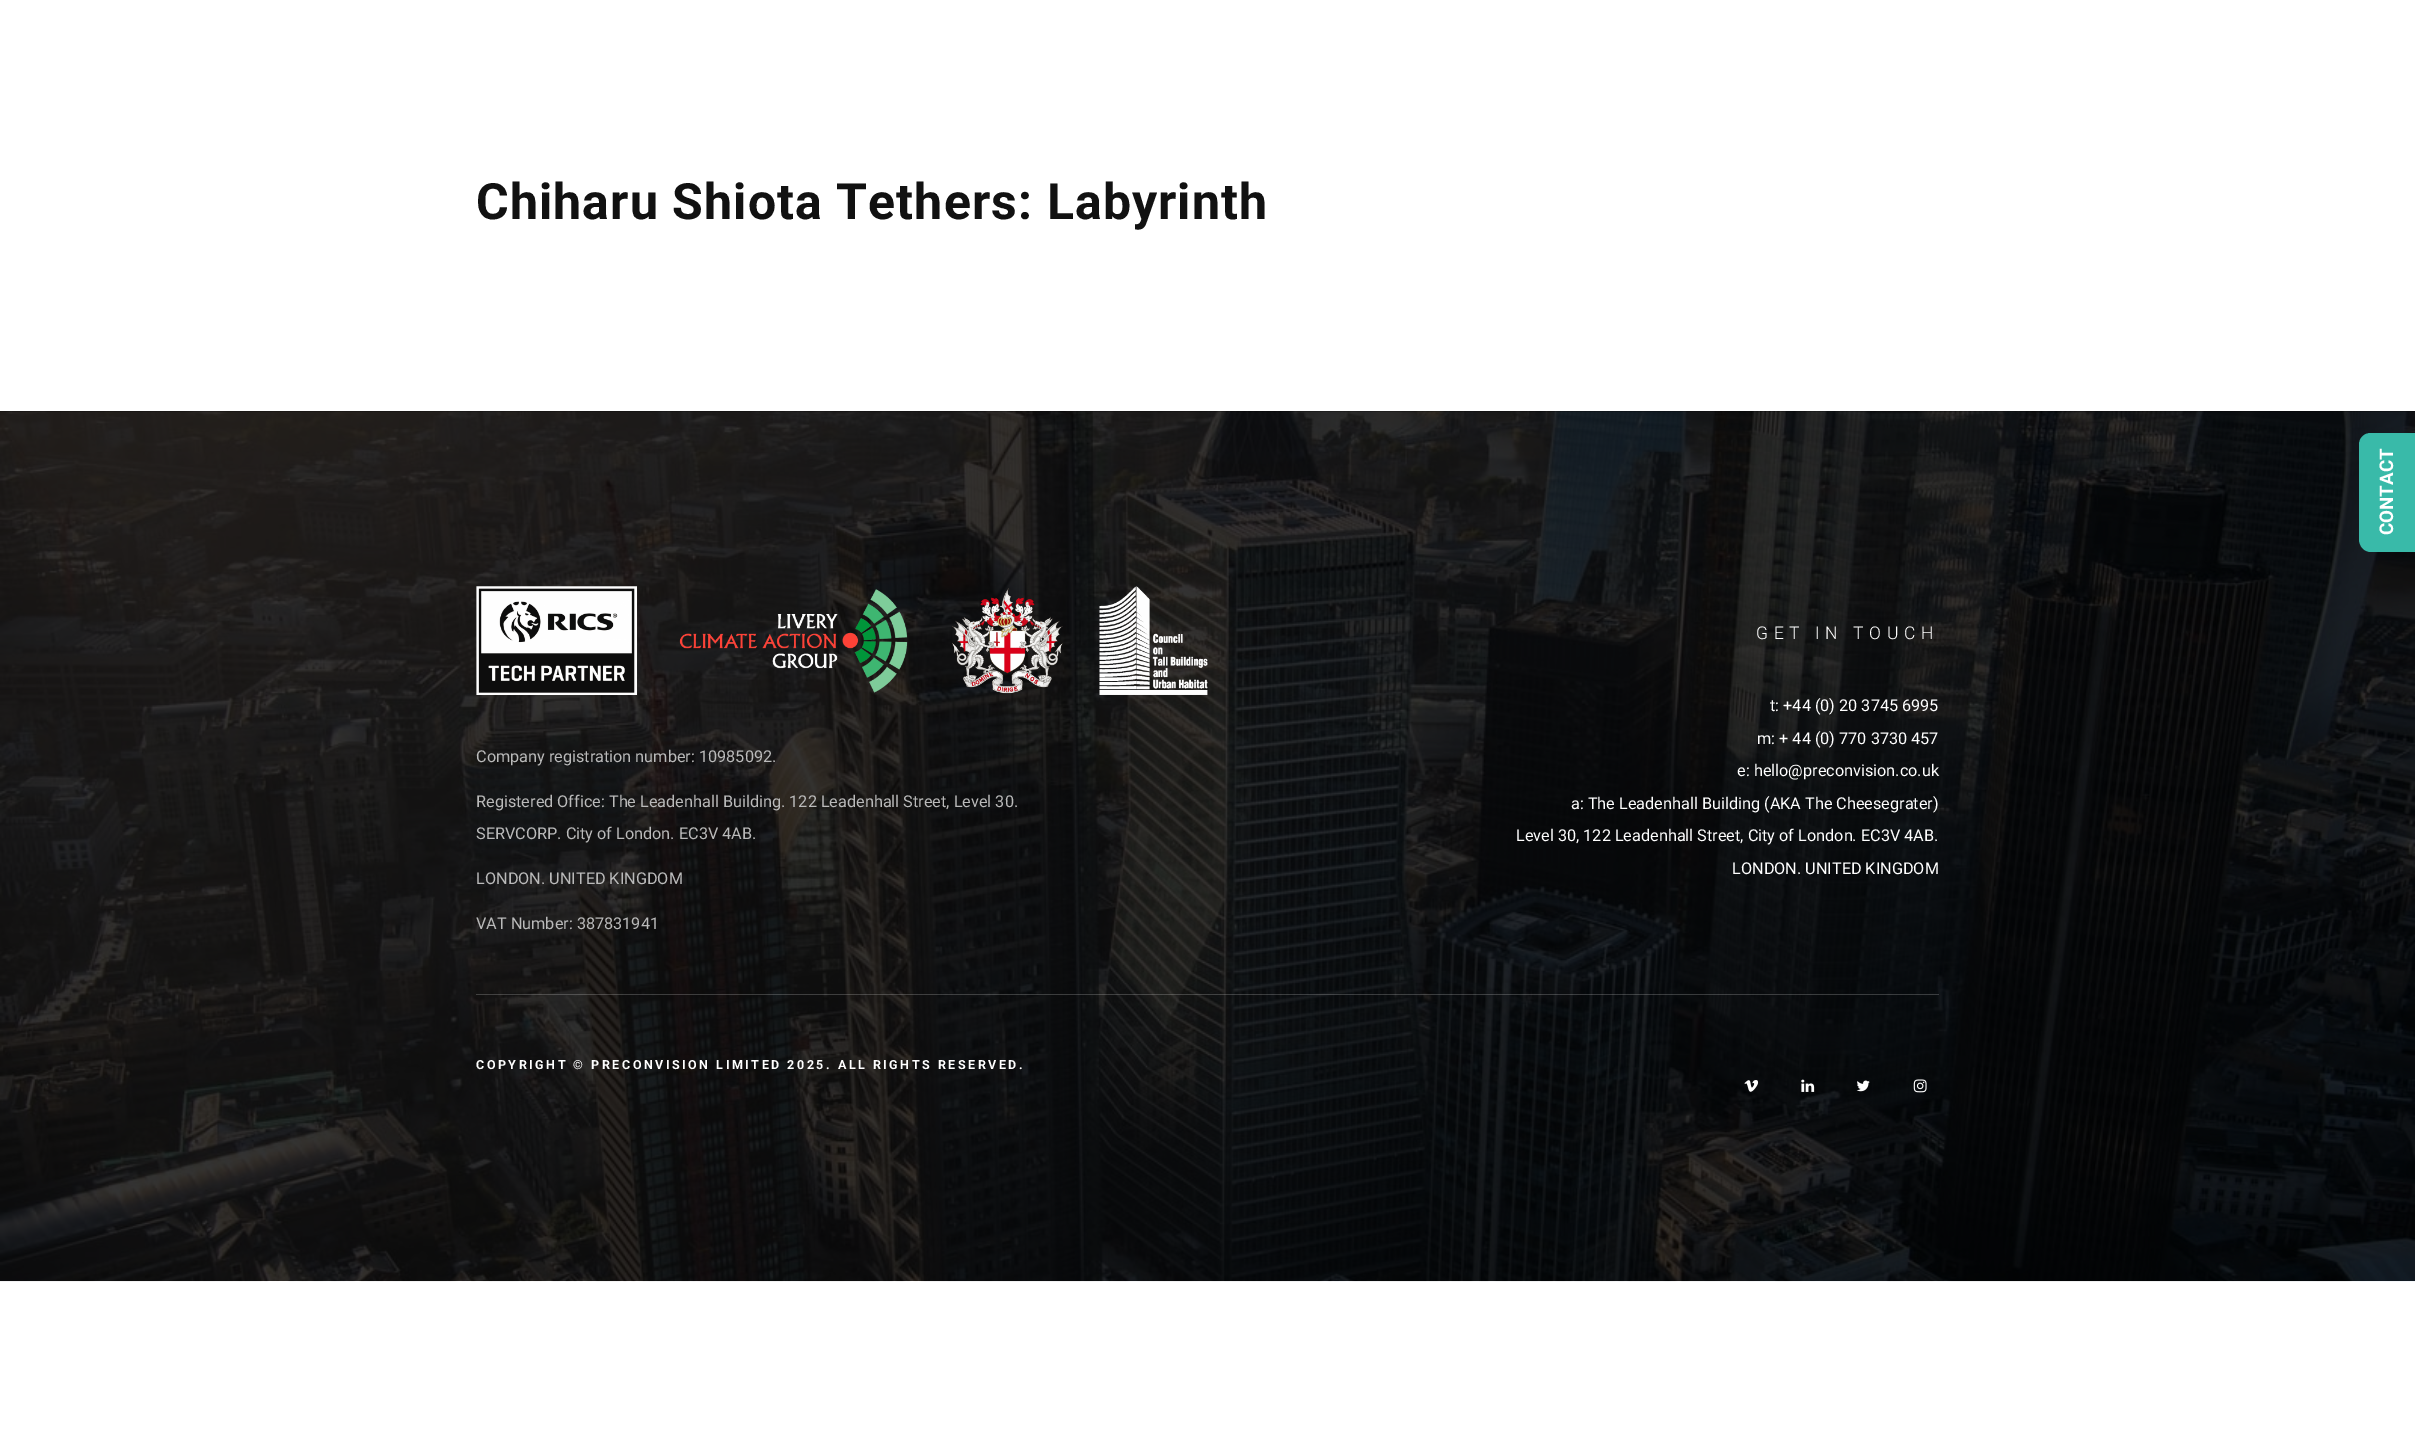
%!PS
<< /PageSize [2415 1453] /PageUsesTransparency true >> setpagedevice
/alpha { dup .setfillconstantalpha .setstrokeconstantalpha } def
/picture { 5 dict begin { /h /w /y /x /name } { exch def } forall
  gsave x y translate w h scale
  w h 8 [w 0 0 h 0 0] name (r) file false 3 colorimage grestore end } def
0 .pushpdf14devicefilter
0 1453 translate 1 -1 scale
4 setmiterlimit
1 setgray
0 0 2415 1453 rectfill
/Roboto-Bold [50 0 0 -50 0 0] selectfont
0.067 setgray
476 219 moveto 1.1 0 (Chiharu Shiota Tethers: Labyrinth) ashow
(img1.rgb) 0 411 2415 871 picture
0.224 0.729 0.663 setrgbcolor
newpath 2359 539 moveto 2359 445 lineto 2359 438 2364 433 2371 433 curveto 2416 433 lineto 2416 552 lineto 2371 552 lineto 2364 552 2359 546 2359 539 curveto closepath fill
/Roboto-Bold [18.75 0 0 -18.75 0 0] selectfont
1 setgray
gsave 2393 535 translate -90 rotate 0 0 moveto (CONTACT) show grestore
0.2 alpha
476 994 1463 1 rectfill
1 alpha
(img2.rgb) 476 586 732 109 picture
/Roboto-Regular [16.25 0 0 -16.25 0 0] selectfont
0.729 setgray
476 762 moveto (Company registration number: 10985092.) show
476 807 moveto (Registered Office: The Leadenhall Building. 122 Leadenhall Street, Level 30.) show
476 839 moveto (SERVCORP. City of London. EC3V 4AB.) show
476 884 moveto (LONDON. UNITED KINGDOM) show
476 929 moveto (VAT Number: 387831941) show
/Roboto-Light [17.5 0 0 -17.5 0 0] selectfont
1 setgray
1756 639 moveto 5.6 0 (GET IN TOUCH) ashow
/Roboto-Regular [16.25 0 0 -16.25 0 0] selectfont
1770 711 moveto (t: +44 \(0\) 20 3745 6995) show
1757 744 moveto (m: + 44 \(0\) 770 3730 457) show
1737 776 moveto (e: hello@preconvision.co.uk) show
1571 809 moveto (a: The Leadenhall Building \(AKA The Cheesegrater\)) show
1516 841 moveto (Level 30, 122 Leadenhall Street, City of London. EC3V 4AB.) show
1732 874 moveto (LONDON. UNITED KINGDOM) show
/Roboto-Bold [12.5 0 0 -12.5 0 0] selectfont
476 1069 moveto 2.5 0 (COPYRIGHT © PRECONVISION LIMITED 2025. ALL RIGHTS RESERVED.) ashow
(img3.rgb) 1744 1080 15 12 picture
(img4.rgb) 1801 1079 14 13 picture
(img5.rgb) 1856 1080 14 12 picture
(img6.rgb) 1913 1079 14 14 picture
.poppdf14devicefilter showpage
